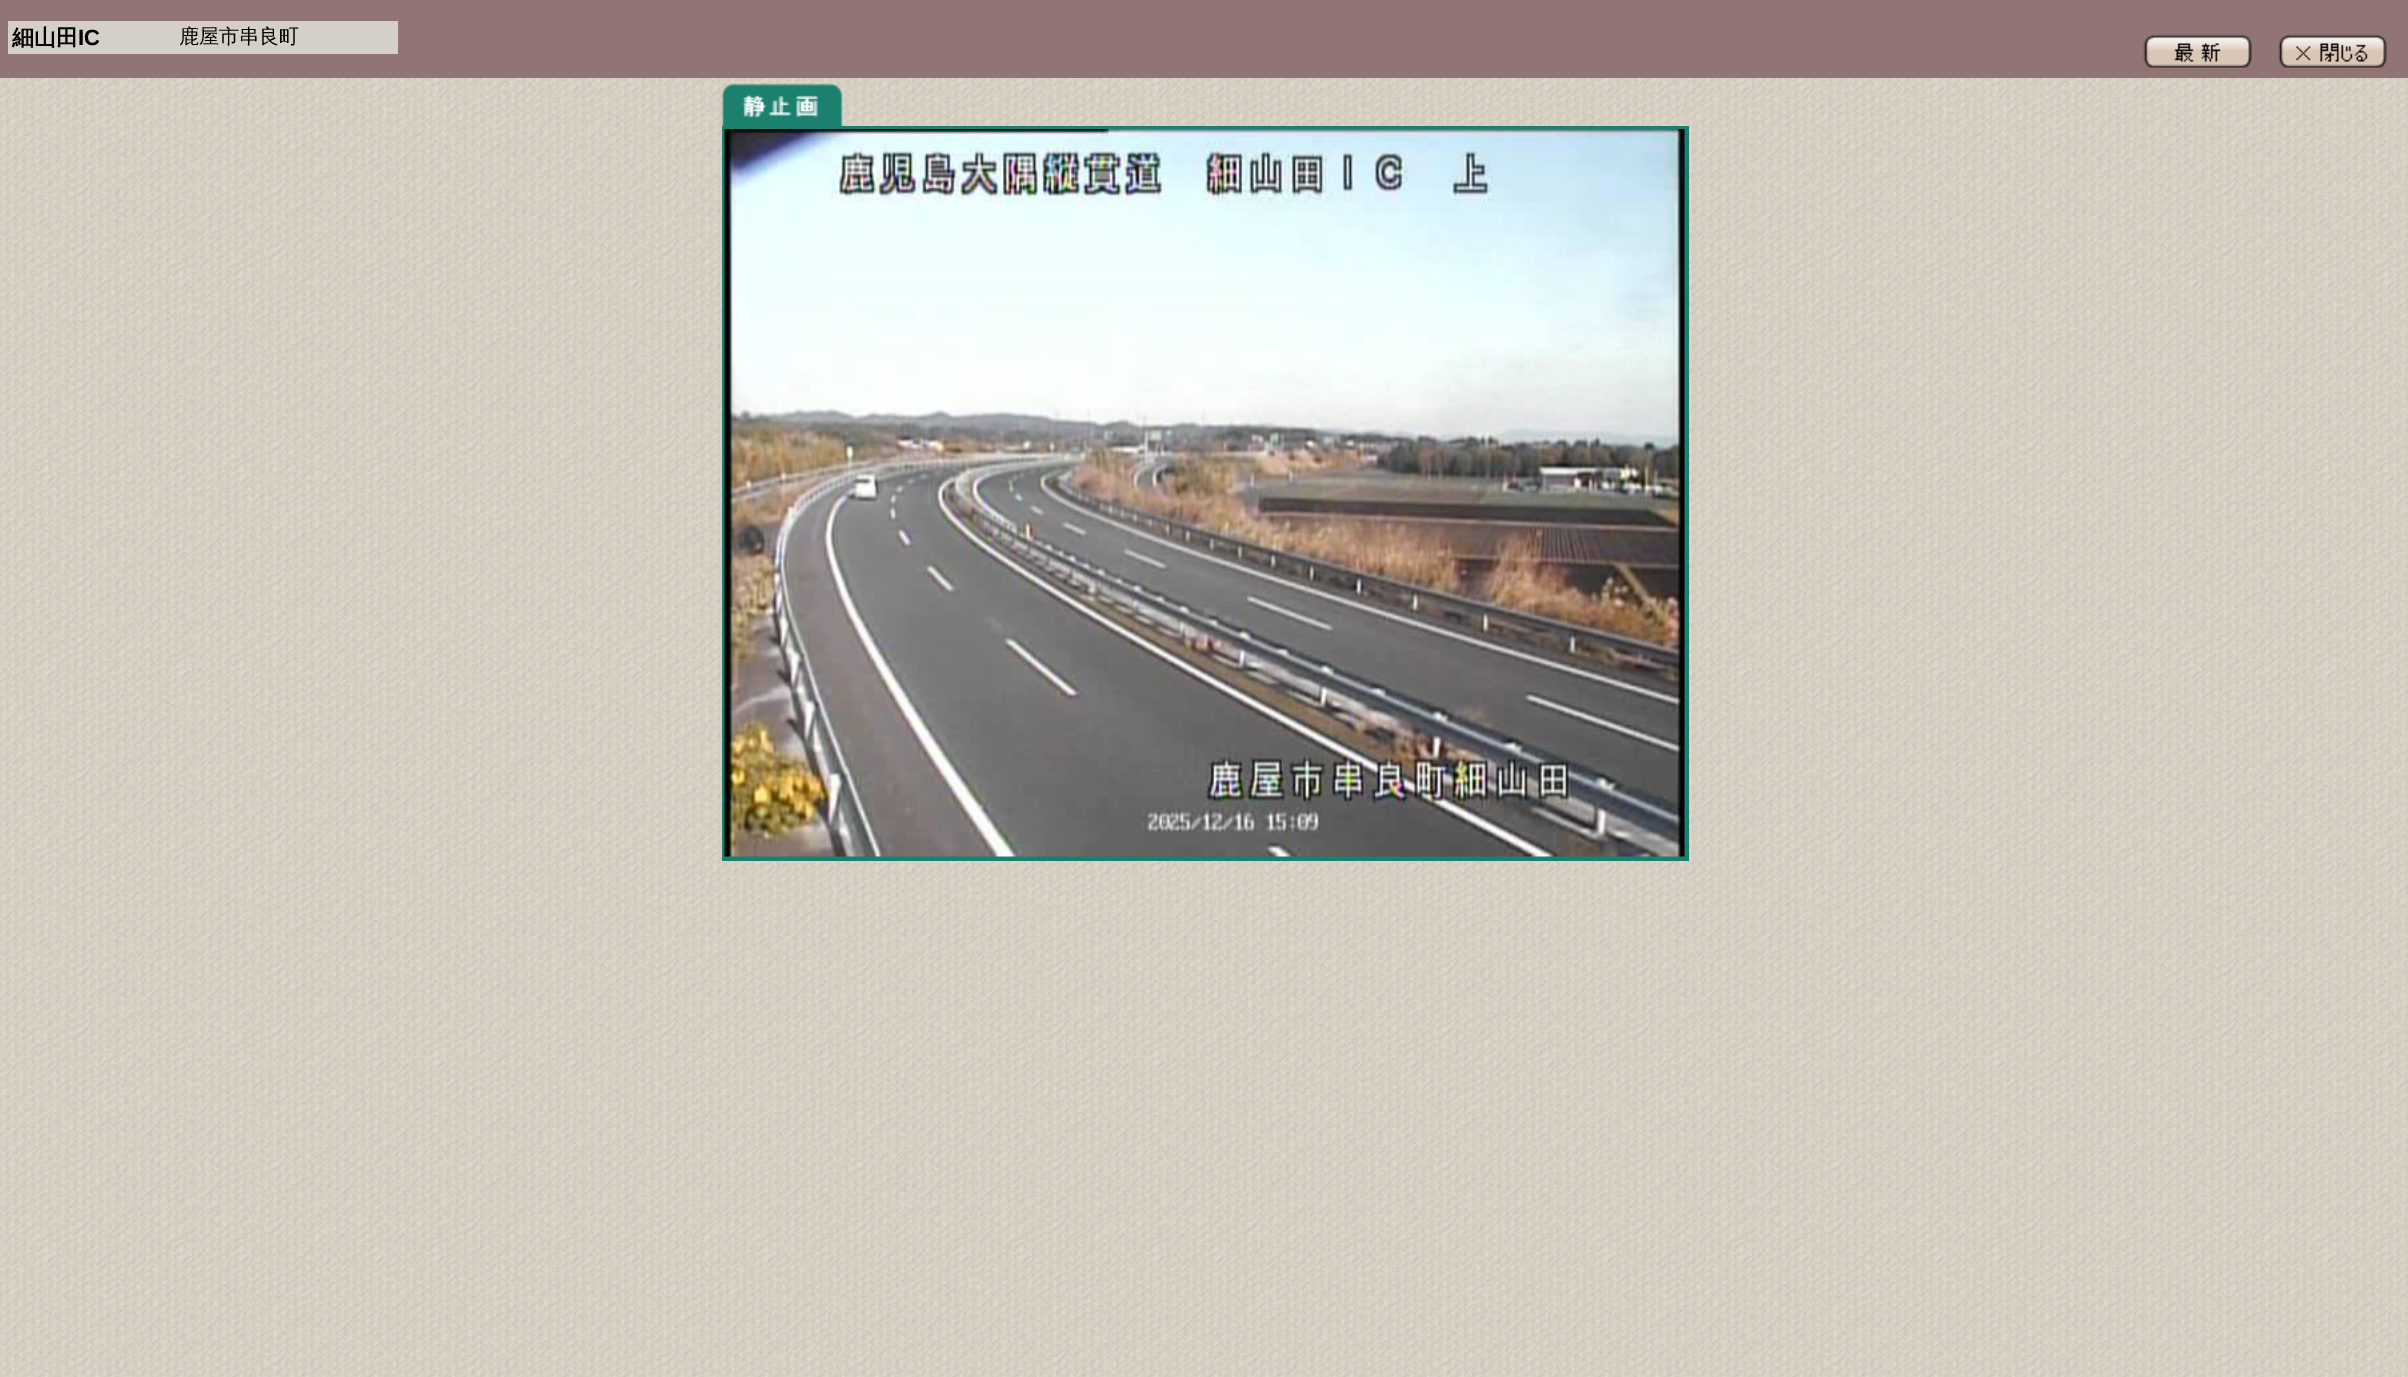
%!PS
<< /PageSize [2408 1377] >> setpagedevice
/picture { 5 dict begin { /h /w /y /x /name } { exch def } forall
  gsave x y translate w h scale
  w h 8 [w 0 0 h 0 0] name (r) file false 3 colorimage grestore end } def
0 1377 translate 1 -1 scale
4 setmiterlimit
1 setgray
0 0 2408 1377 rectfill
(img1.rgb) 0 78 2408 1299 picture
0.569 0.455 0.455 setrgbcolor
0 0 2408 78 rectfill
0.831 0.816 0.784 setrgbcolor
8 21 390 33 rectfill
/WenQuanYiZenHei-Bold [22 0 0 -22 0 0] selectfont
0 setgray
12 45 moveto (細山田) show
/LiberationSans-Bold [22 0 0 -22 0 0] selectfont
78 45 moveto (IC) show
/WenQuanYiZenHei-Medium [20 0 0 -20 0 0] selectfont
179 43 moveto (鹿屋市串良町) show
(img2.rgb) 2143 34 109 34 picture
(img3.rgb) 2278 34 109 34 picture
(img4.rgb) 721 83 122 43 picture
0.11 0.502 0.431 setrgbcolor
722 126 967 735 rectfill
(img5.rgb) 724 129 961 728 picture
showpage
